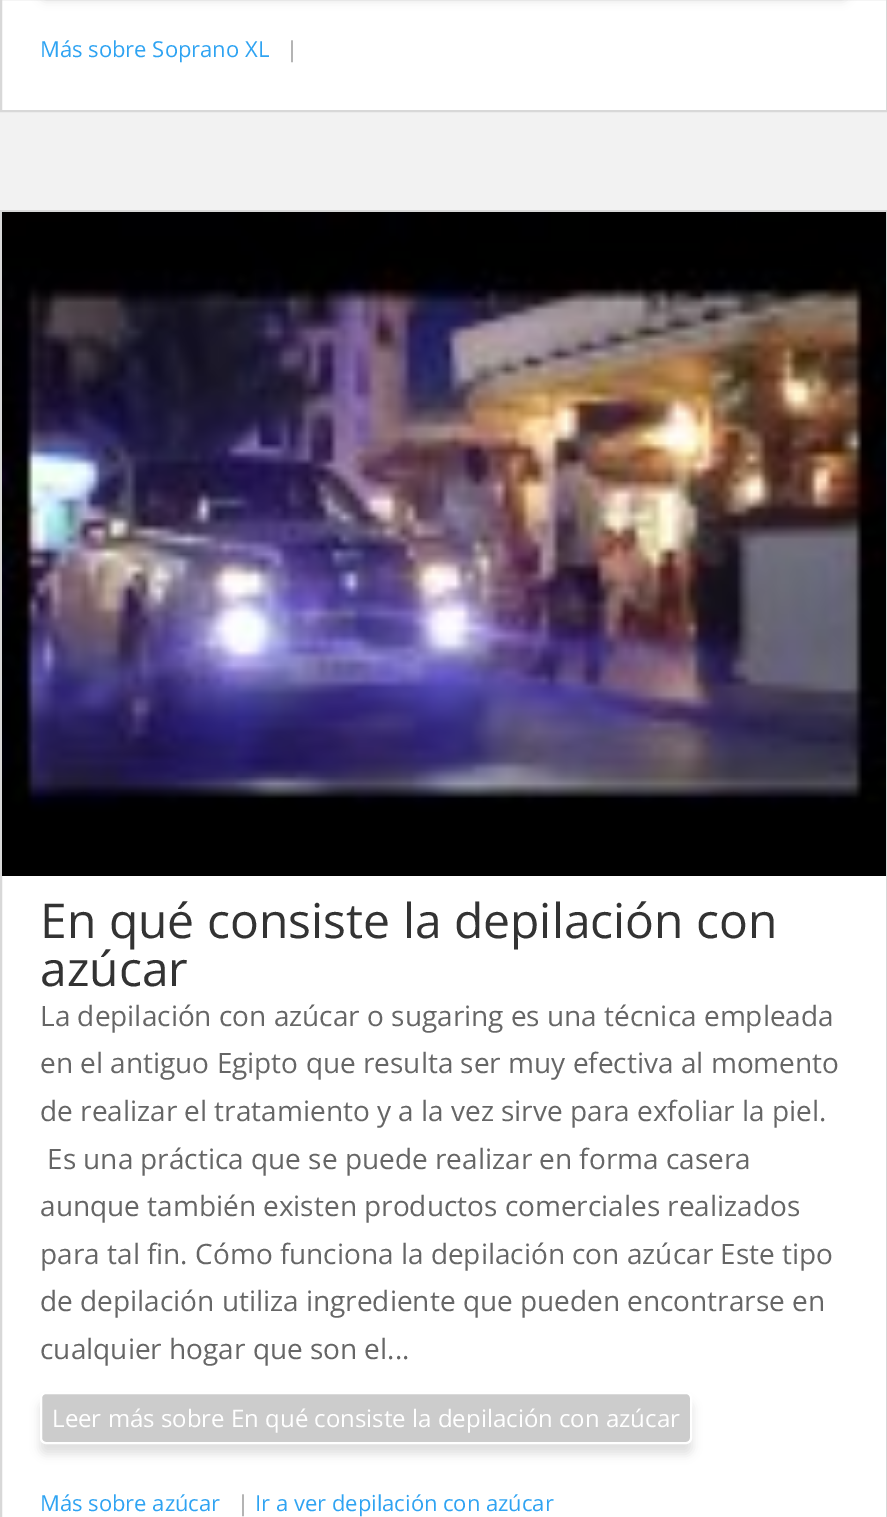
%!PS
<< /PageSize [887 1517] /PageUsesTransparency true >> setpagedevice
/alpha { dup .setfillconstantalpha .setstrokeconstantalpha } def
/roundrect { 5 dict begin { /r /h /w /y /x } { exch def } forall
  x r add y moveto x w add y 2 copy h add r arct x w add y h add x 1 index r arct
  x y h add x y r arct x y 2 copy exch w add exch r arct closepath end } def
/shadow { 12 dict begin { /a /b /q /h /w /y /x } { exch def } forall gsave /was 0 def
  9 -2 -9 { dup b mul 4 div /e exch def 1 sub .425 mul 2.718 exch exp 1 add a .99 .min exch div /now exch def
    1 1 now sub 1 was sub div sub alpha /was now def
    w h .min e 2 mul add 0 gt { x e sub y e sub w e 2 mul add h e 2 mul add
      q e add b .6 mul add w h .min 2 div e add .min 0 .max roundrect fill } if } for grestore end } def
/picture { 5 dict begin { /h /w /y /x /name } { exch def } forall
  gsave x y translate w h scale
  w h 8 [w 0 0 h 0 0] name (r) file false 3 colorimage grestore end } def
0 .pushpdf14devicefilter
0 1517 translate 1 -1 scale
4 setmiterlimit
0.949 setgray
0 0 887 1517 rectfill
1 setgray
newpath 1 -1 moveto 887 -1 lineto 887 111 lineto 1 111 lineto closepath gsave fill grestore
0.847 setgray
2 setlinewidth
stroke
0.69 setgray
40 -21 808 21 6 5 0.4 shadow
/OpenSans-Regular [22 0 0 -22 0 0] selectfont
0.18 0.639 0.949 setrgbcolor
40 57 moveto (Más sobre Soprano XL) show
0.6 setgray
286 57 moveto (|) show
1 setgray
2 876 884 641 rectfill
0.847 setgray
1 211 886 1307 rectstroke
(img1.rgb) 2 212 884 664 picture
/OpenSans-Regular [48 0 0 -48 0 0] selectfont
0.2 setgray
40 938 moveto (En qué consiste la depilación con) show
40 986 moveto (azúcar) show
/OpenSans-Regular [28 0 0 -28 0 0] selectfont
0.4 setgray
40 1026 moveto (La depilación con azúcar o sugaring es una técnica empleada) show
40 1073 moveto (en el antiguo Egipto que resulta ser muy efectiva al momento) show
40 1121 moveto (de realizar el tratamiento y a la vez sirve para exfoliar la piel.) show
47 1169 moveto (Es una práctica que se puede realizar en forma casera) show
40 1216 moveto (aunque también existen productos comerciales realizados) show
40 1264 moveto (para tal fin. Cómo funciona la depilación con azúcar Este tipo) show
40 1311 moveto (de depilación utiliza ingrediente que pueden encontrarse en) show
40 1359 moveto (cualquier hogar que son el...) show
0.69 setgray
40 1402 652 52 6 5 0.4 shadow
0.8 setgray
41 1393 650 50 5 roundrect gsave fill grestore
1 setgray
stroke
/OpenSans-Regular [24 0 0 -24 0 0] selectfont
52 1427 moveto (Leer más sobre En qué consiste la depilación con azúcar) show
/OpenSans-Regular [22 0 0 -22 0 0] selectfont
0.18 0.639 0.949 setrgbcolor
40 1511 moveto (Más sobre azúcar) show
0.6 setgray
237 1511 moveto (|) show
0.18 0.639 0.949 setrgbcolor
255 1511 moveto (Ir a ver depilación con azúcar) show
.poppdf14devicefilter showpage
